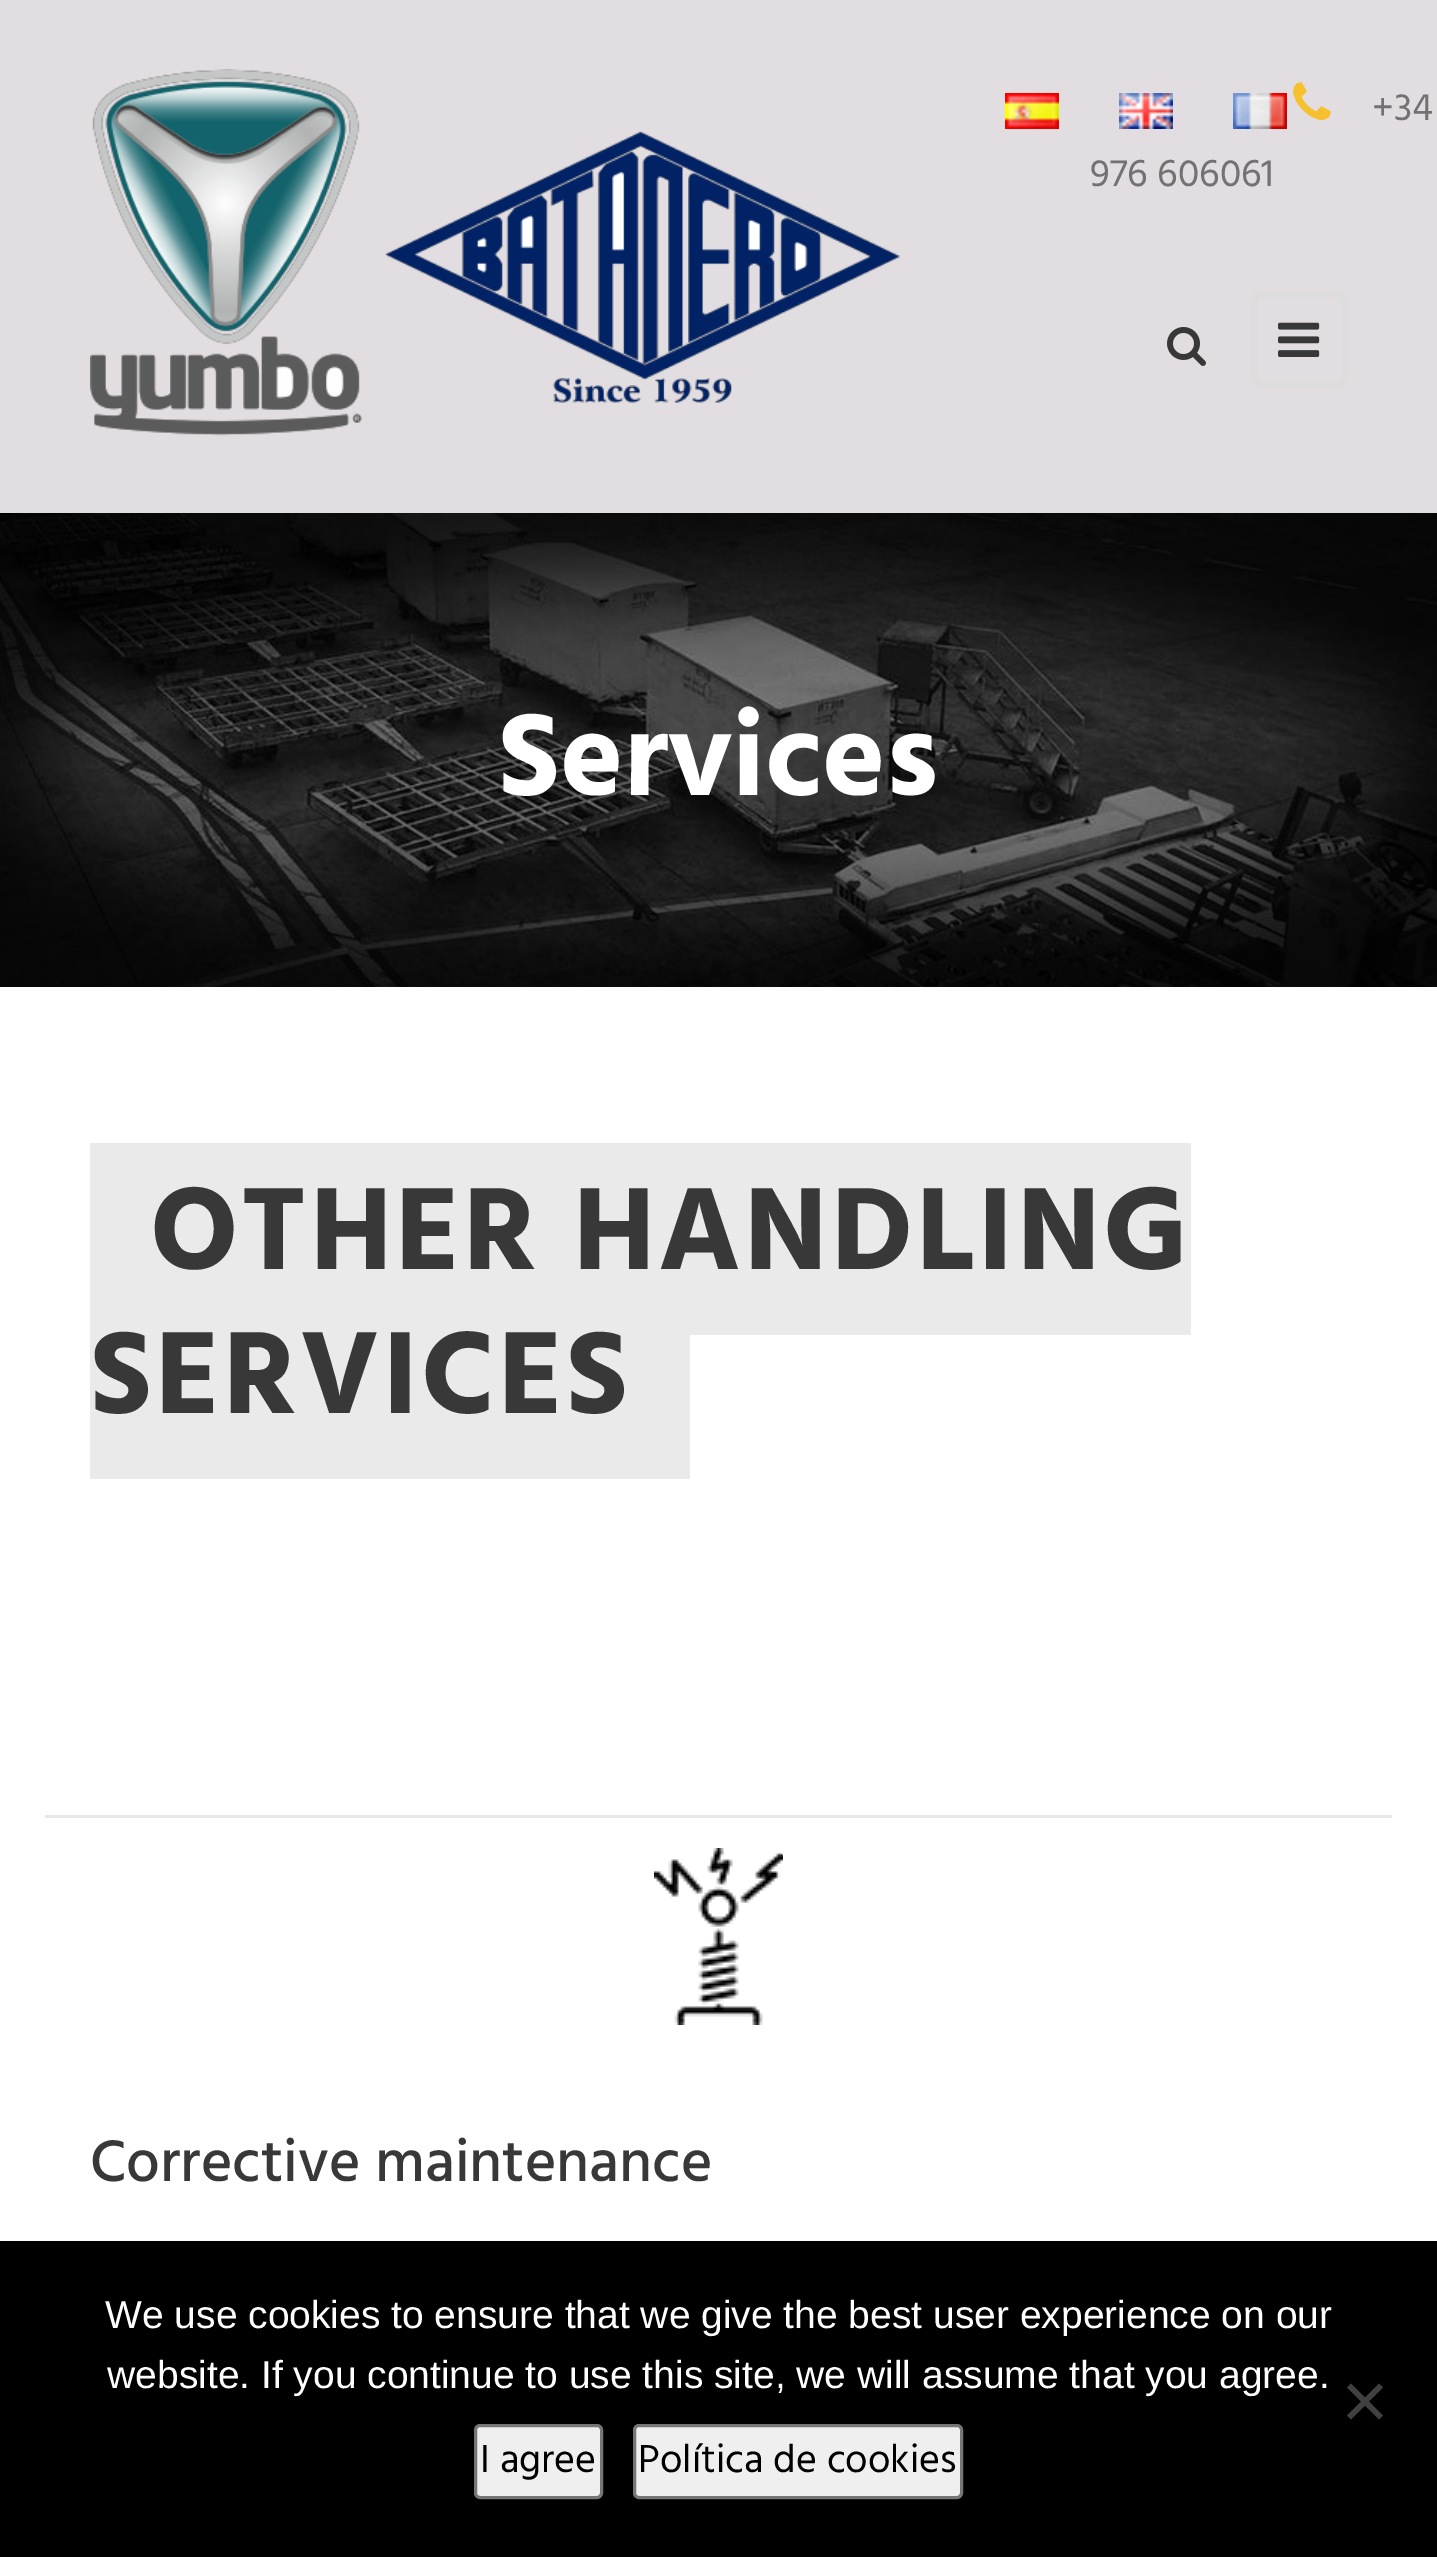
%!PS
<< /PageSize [1437 2557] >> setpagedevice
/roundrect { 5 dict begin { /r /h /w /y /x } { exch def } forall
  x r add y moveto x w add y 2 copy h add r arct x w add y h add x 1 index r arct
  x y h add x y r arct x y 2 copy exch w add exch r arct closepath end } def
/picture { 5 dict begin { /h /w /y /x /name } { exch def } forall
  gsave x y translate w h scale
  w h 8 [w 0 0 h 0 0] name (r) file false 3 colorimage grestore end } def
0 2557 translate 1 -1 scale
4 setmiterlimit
0.882 0.867 0.878 setrgbcolor
0 0 1437 2557 rectfill
(img1.rgb) 90 69 810 367 picture
(img2.rgb) 1005 93 54 36 picture
(img3.rgb) 1119 93 54 36 picture
(img4.rgb) 1233 93 54 36 picture
(img5.rgb) 1293 82 38 38 picture
/Hind-Regular [39 0 0 -39 0 0] selectfont
0.447 setgray
1372 120 moveto (+34) show
1090 186 moveto (976 606061) show
(img6.rgb) 1167 327 39 39 picture
0.867 setgray
6 setlinewidth
1254 294 90 90 6 roundrect stroke
(img7.rgb) 1278 322 42 35 picture
1 setgray
0 987 1437 1254 rectfill
(img8.rgb) 0 513 1437 474 picture
/Hind-Bold [120 0 0 -120 0 0] selectfont
498 795 moveto (Services) show
0.918 setgray
90 1143 1101 192 rectfill
0.22 setgray
150 1269 moveto 3 0 (OTHER HANDLING) ashow
0.918 setgray
90 1335 600 144 rectfill
0.22 setgray
90 1413 moveto 3 0 (SERVICES) ashow
0.91 setgray
45 1815 1347 3 rectfill
(img9.rgb) 654 1848 129 177 picture
/Hind-Medium [60 0 0 -60 0 0] selectfont
0.22 setgray
90 2181 moveto (Corrective maintenance) show
0 setgray
0 2241 1437 316 rectfill
/LiberationSans-Regular [39 0 0 -39 0 0] selectfont
1 setgray
105 2328 moveto (We use cookies to ensure that we give the best user experience on our) show
107 2388 moveto (website. If you continue to use this site, we will assume that you agree.) show
0.251 setgray
newpath 1379 2383.5 moveto 1383 2387.5 lineto 1351 2419.5 lineto 1347 2415.5 lineto closepath fill
newpath 1347 2387.5 moveto 1351 2383.5 lineto 1383 2415.5 lineto 1379 2419.5 lineto closepath fill
0.937 setgray
475.5 2425.5 126 72 4.5 roundrect gsave fill grestore
0.463 setgray
3 setlinewidth
stroke
/Hind-Regular [40 0 0 -40 0 0] selectfont
0 setgray
480 2472 moveto (I agree) show
0.937 setgray
634.5 2425.5 327 72 4.5 roundrect gsave fill grestore
0.463 setgray
stroke
0 setgray
638 2472 moveto (Política de cookies) show
showpage
